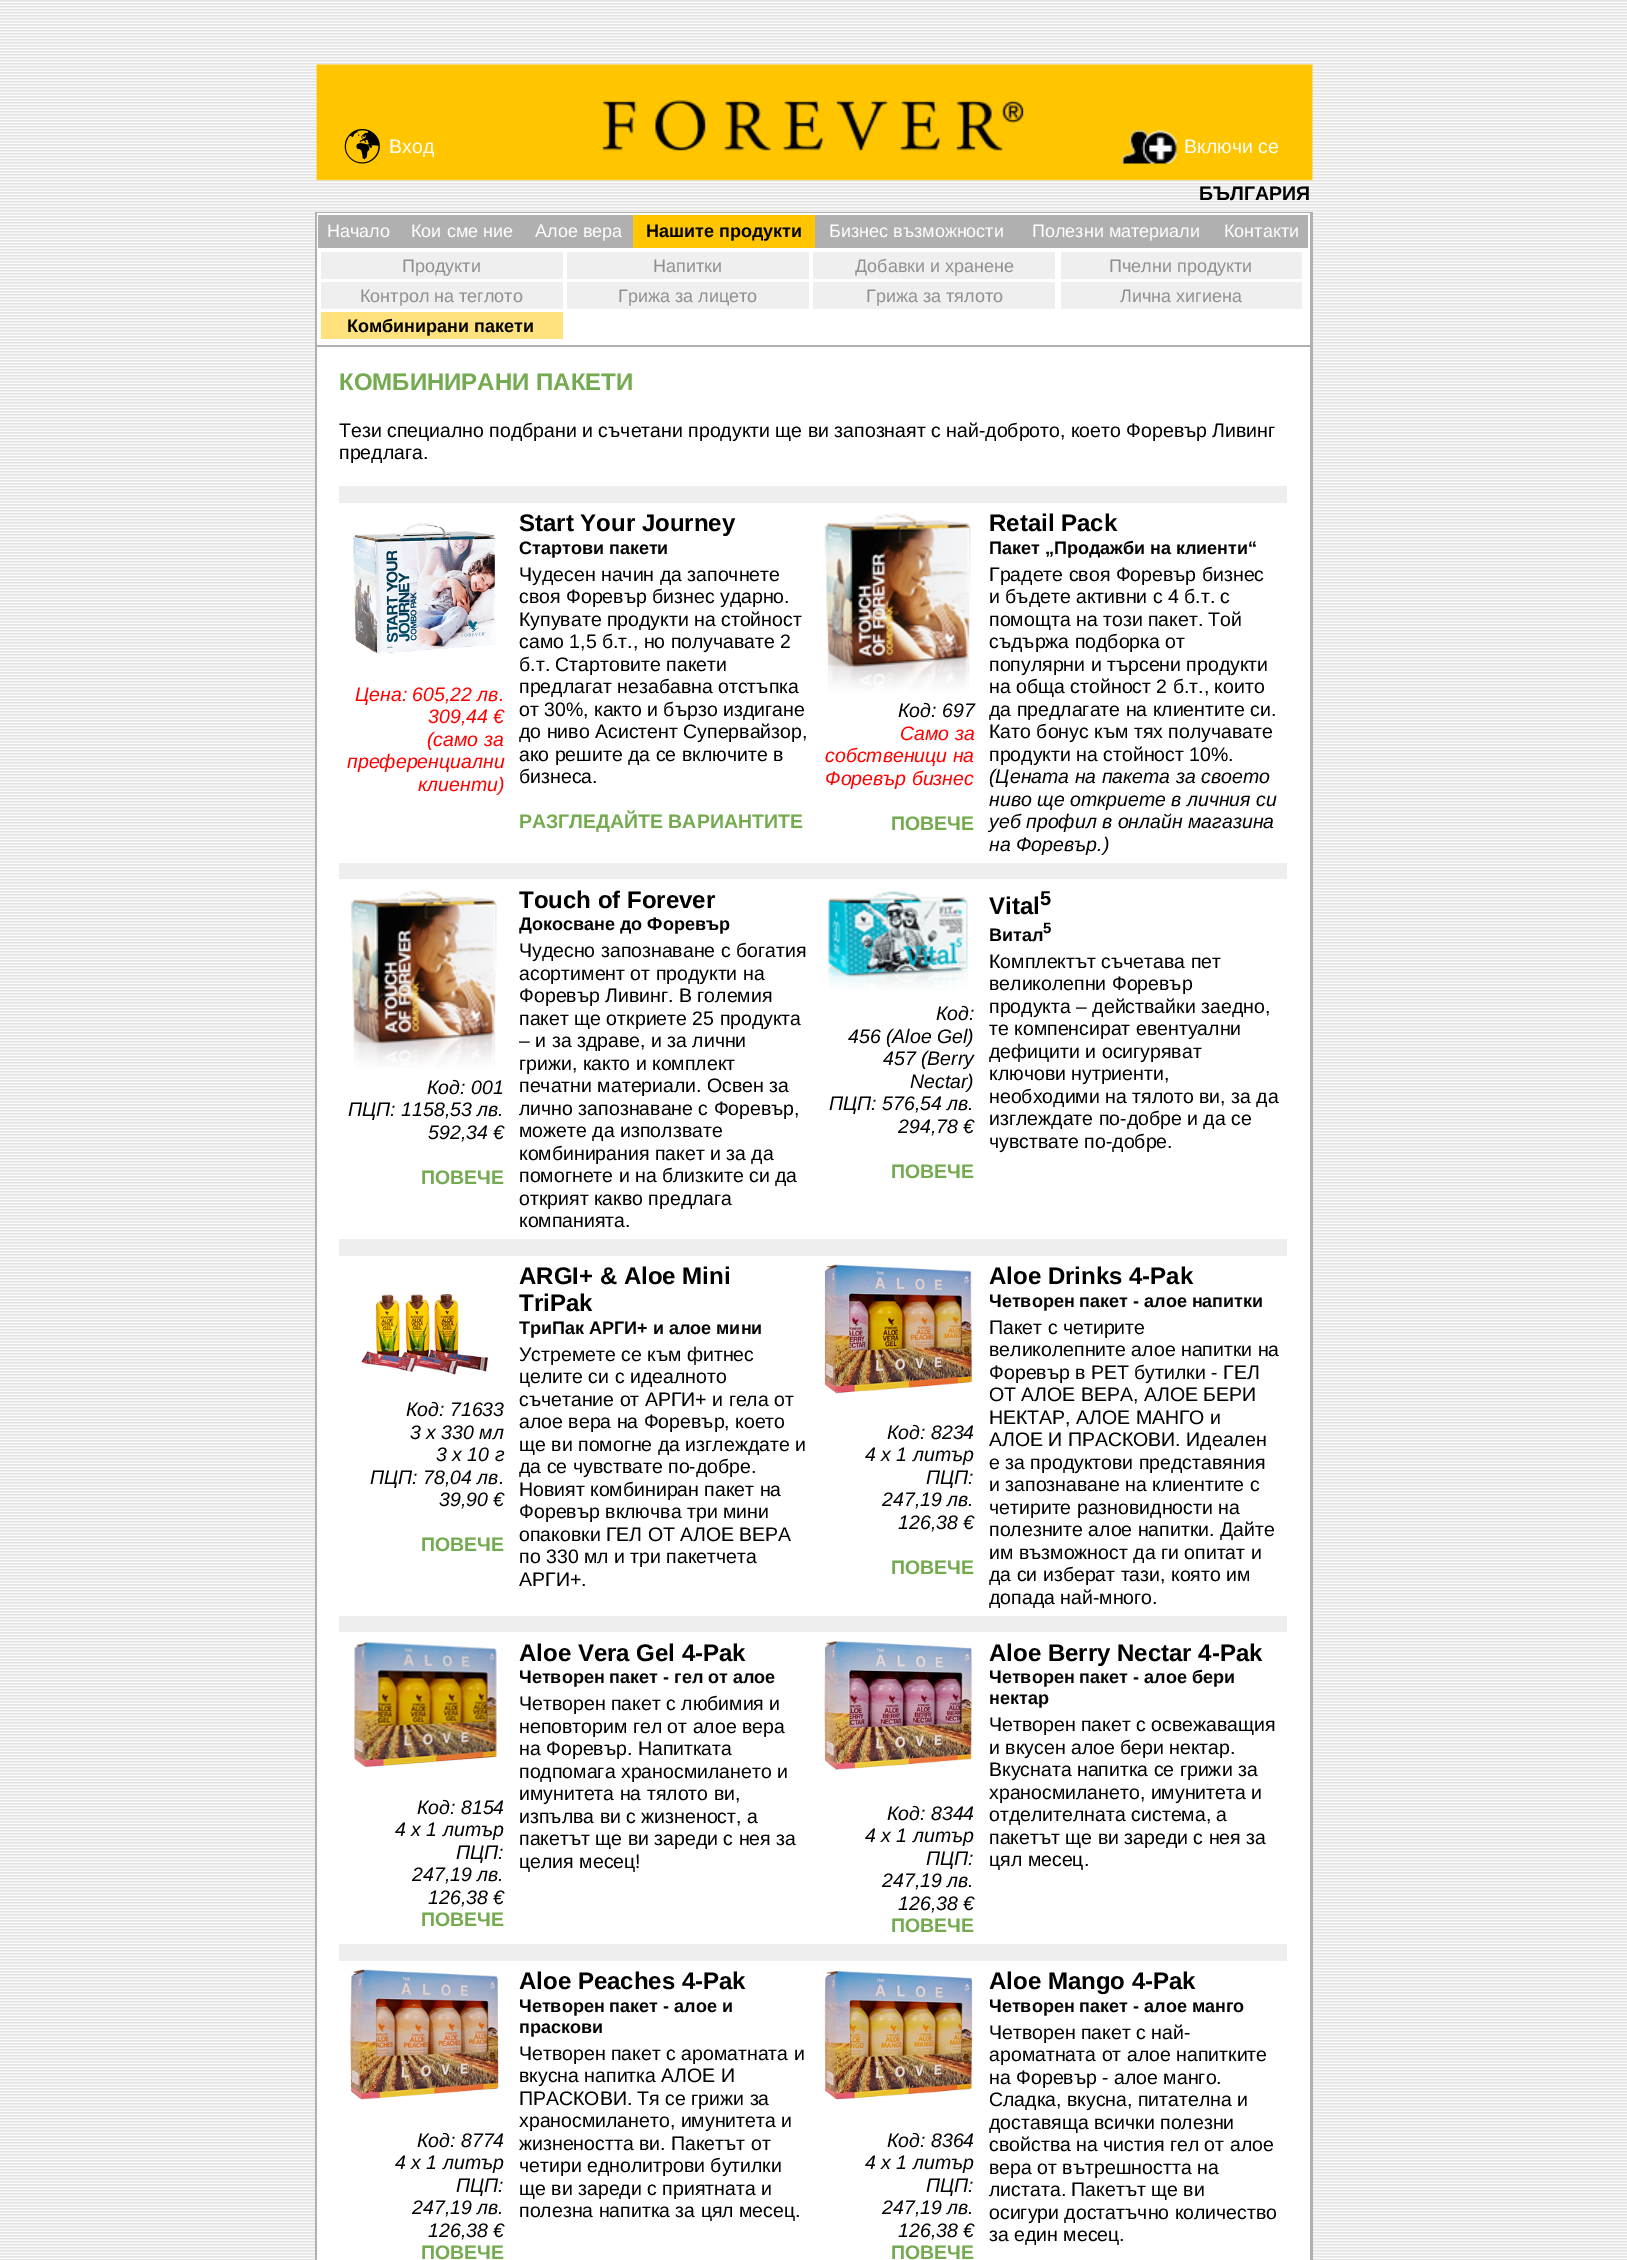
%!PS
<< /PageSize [1627 2260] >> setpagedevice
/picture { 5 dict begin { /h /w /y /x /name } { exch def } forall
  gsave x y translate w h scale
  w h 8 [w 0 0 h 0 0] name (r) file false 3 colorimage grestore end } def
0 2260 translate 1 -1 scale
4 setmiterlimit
1 setgray
0 0 1627 2260 rectfill
(img1.rgb) 0 0 1627 2260 picture
(img2.rgb) 316 64 997 117 picture
(img3.rgb) 344 129 36 35 picture
/LiberationSans-Regular [19.5 0 0 -19.5 0 0] selectfont
389 153 moveto (Вход) show
(img4.rgb) 1121 130 56 34 picture
1184 153 moveto (Включи се) show
/LiberationSans-Bold [19.5 0 0 -19.5 0 0] selectfont
0 setgray
1199 200 moveto (БЪЛГАРИЯ) show
0.69 setgray
315 212 998 1 rectfill
315 213 2 2047 rectfill
1 setgray
317 213 993 132 rectfill
0.69 setgray
318 215 990 33 rectfill
/LiberationSans-Regular [18 0 0 -18 0 0] selectfont
1 setgray
327 237 moveto (Начало) show
411 237 moveto (Кои сме ние) show
535 237 moveto (Алое вера) show
1 0.776 0 setrgbcolor
633 215 182 33 rectfill
/LiberationSans-Bold [18 0 0 -18 0 0] selectfont
0 setgray
646 237 moveto (Нашите продукти) show
/LiberationSans-Regular [18 0 0 -18 0 0] selectfont
1 setgray
829 237 moveto (Бизнес възможности) show
1032 237 moveto (Полезни материали) show
1224 237 moveto (Контакти) show
0.937 setgray
321 252 242 27 rectfill
0.565 setgray
402 272 moveto (Продукти) show
0.937 setgray
567 252 242 27 rectfill
0.565 setgray
653 272 moveto (Напитки) show
0.937 setgray
813 252 242 27 rectfill
0.565 setgray
855 272 moveto (Добавки и хранене) show
0.937 setgray
1061 252 241 27 rectfill
0.565 setgray
1109 272 moveto (Пчелни продукти) show
0.937 setgray
321 282 242 27 rectfill
0.565 setgray
360 302 moveto (Контрол на теглото) show
0.937 setgray
567 282 242 27 rectfill
0.565 setgray
618 302 moveto (Грижа за лицето) show
0.937 setgray
813 282 242 27 rectfill
0.565 setgray
866 302 moveto (Грижа за тялото) show
0.937 setgray
1061 282 241 27 rectfill
0.565 setgray
1120 302 moveto (Лична хигиена) show
1 0.886 0.49 setrgbcolor
321 312 242 27 rectfill
/LiberationSans-Bold [18 0 0 -18 0 0] selectfont
0 setgray
347 332 moveto (Комбинирани пакети) show
0.69 setgray
1310 213 3 132 rectfill
317 345 996 2 rectfill
1 setgray
317 347 993 1913 rectfill
/LiberationSans-Bold [24 0 0 -24 0 0] selectfont
0.455 0.667 0.314 setrgbcolor
339 390 moveto (КОМБИНИРАНИ ПАКЕТИ) show
/LiberationSans-Regular [19.5 0 0 -19.5 0 0] selectfont
0 setgray
339 437 moveto (Тези специално подбрани и съчетани продукти ще ви запознаят с най-доброто, което Форевър Ливинг) show
339 459 moveto (предлага.) show
0.933 setgray
339 486 948 17 rectfill
(img5.rgb) 353 523 143 131 picture
/LiberationSans-Italic [19.5 0 0 -19.5 0 0] selectfont
1 0 0 setrgbcolor
355 701 moveto (Цена: 605,22 лв.) show
428 723 moveto (309,44 €) show
427 746 moveto (\(само за) show
347 768 moveto (преференциални) show
418 791 moveto (клиенти\)) show
/LiberationSans-Bold [24 0 0 -24 0 0] selectfont
0 setgray
519 531 moveto (Start Your Journey) show
/LiberationSans-Bold [18 0 0 -18 0 0] selectfont
519 554 moveto (Стартови пакети) show
/LiberationSans-Regular [19.5 0 0 -19.5 0 0] selectfont
519 581 moveto (Чудесен начин да започнете) show
519 603 moveto (своя Форевър бизнес ударно.) show
519 626 moveto (Купувате продукти на стойност) show
519 648 moveto (само 1,5 б.т., но получавате 2) show
519 671 moveto (б.т. Стартовите пакети) show
519 693 moveto (предлагат незабавна отстъпка) show
519 716 moveto (от 30%, както и бързо издигане) show
519 738 moveto (до ниво Асистент Супервайзор,) show
519 761 moveto (ако решите да се включите в) show
519 783 moveto (бизнеса.) show
/LiberationSans-Bold [19.5 0 0 -19.5 0 0] selectfont
0.455 0.667 0.314 setrgbcolor
519 828 moveto (РАЗГЛЕДАЙТЕ ВАРИАНТИТЕ) show
(img6.rgb) 824 513 147 179 picture
/LiberationSans-Italic [19.5 0 0 -19.5 0 0] selectfont
0 setgray
898 717 moveto (Код: 697) show
1 0 0 setrgbcolor
900 740 moveto (Само за) show
825 762 moveto (собственици на) show
825 785 moveto (Форевър бизнес) show
/LiberationSans-Bold [19.5 0 0 -19.5 0 0] selectfont
0.455 0.667 0.314 setrgbcolor
891 830 moveto (ПОВЕЧЕ) show
/LiberationSans-Bold [24 0 0 -24 0 0] selectfont
0 setgray
989 531 moveto (Retail Pack) show
/LiberationSans-Bold [18 0 0 -18 0 0] selectfont
989 554 moveto (Пакет „Продажби на клиенти“) show
/LiberationSans-Regular [19.5 0 0 -19.5 0 0] selectfont
989 581 moveto (Градете своя Форевър бизнес) show
989 603 moveto (и бъдете активни с 4 б.т. с) show
989 626 moveto (помощта на този пакет. Той) show
989 648 moveto (съдържа подборка от) show
989 671 moveto (популярни и търсени продукти) show
989 693 moveto (на обща стойност 2 б.т., които) show
989 716 moveto (да предлагате на клиентите си.) show
989 738 moveto (Като бонус към тях получавате) show
989 761 moveto (продукти на стойност 10%.) show
/LiberationSans-Italic [19.5 0 0 -19.5 0 0] selectfont
989 783 moveto (\(Цената на пакета за своето) show
989 806 moveto (ниво ще откриете в личния си) show
989 828 moveto (уеб профил в онлайн магазина) show
989 851 moveto (на Форевър.\)) show
0.933 setgray
339 863 948 16 rectfill
(img7.rgb) 350 889 147 179 picture
0 setgray
427 1094 moveto (Код: 001) show
348 1116 moveto (ПЦП: 1158,53 лв.) show
428 1139 moveto (592,34 €) show
/LiberationSans-Bold [19.5 0 0 -19.5 0 0] selectfont
0.455 0.667 0.314 setrgbcolor
421 1184 moveto (ПОВЕЧЕ) show
/LiberationSans-Bold [24 0 0 -24 0 0] selectfont
0 setgray
519 908 moveto (Touch of Forever) show
/LiberationSans-Bold [18 0 0 -18 0 0] selectfont
519 930 moveto (Докосване до Форевър) show
/LiberationSans-Regular [19.5 0 0 -19.5 0 0] selectfont
519 957 moveto (Чудесно запознаване с богатия) show
519 980 moveto (асортимент от продукти на) show
519 1002 moveto (Форевър Ливинг. В големия) show
519 1025 moveto (пакет ще откриете 25 продукта) show
519 1047 moveto (– и за здраве, и за лични) show
519 1070 moveto (грижи, както и комплект) show
519 1092 moveto (печатни материали. Освен за) show
519 1115 moveto (лично запознаване с Форевър,) show
519 1137 moveto (можете да използвате) show
519 1160 moveto (комбинирания пакет и за да) show
519 1182 moveto (помогнете и на близките си да) show
519 1205 moveto (открият какво предлага) show
519 1227 moveto (компанията.) show
(img8.rgb) 827 891 142 100 picture
/LiberationSans-Italic [19.5 0 0 -19.5 0 0] selectfont
936 1020 moveto (Код:) show
848 1043 moveto (456 \(Aloe Gel\)) show
883 1065 moveto (457 \(Berry) show
910 1088 moveto (Nectar\)) show
829 1110 moveto (ПЦП: 576,54 лв.) show
898 1133 moveto (294,78 €) show
/LiberationSans-Bold [19.5 0 0 -19.5 0 0] selectfont
0.455 0.667 0.314 setrgbcolor
891 1178 moveto (ПОВЕЧЕ) show
/LiberationSans-Bold [24 0 0 -24 0 0] selectfont
0 setgray
989 914 moveto (Vital) show
/LiberationSans-Bold [20 0 0 -20 0 0] selectfont
1040 905 moveto (5) show
/LiberationSans-Bold [18 0 0 -18 0 0] selectfont
989 941 moveto (Витал) show
/LiberationSans-Bold [15 0 0 -15 0 0] selectfont
1043 933 moveto (5) show
/LiberationSans-Regular [19.5 0 0 -19.5 0 0] selectfont
989 968 moveto (Комплектът съчетава пет) show
989 990 moveto (великолепни Форевър) show
989 1013 moveto (продукта – действайки заедно,) show
989 1035 moveto (те компенсират евентуални) show
989 1058 moveto (дефицити и осигуряват) show
989 1080 moveto (ключови нутриенти,) show
989 1103 moveto (необходими на тялото ви, за да) show
989 1125 moveto (изглеждате по-добре и да се) show
989 1148 moveto (чувствате по-добре.) show
0.933 setgray
339 1239 948 17 rectfill
(img9.rgb) 361 1294 127 81 picture
/LiberationSans-Italic [19.5 0 0 -19.5 0 0] selectfont
0 setgray
406 1416 moveto (Код: 71633) show
410 1439 moveto (3 х 330 мл) show
436 1461 moveto (3 х 10 г) show
370 1484 moveto (ПЦП: 78,04 лв.) show
439 1506 moveto (39,90 €) show
/LiberationSans-Bold [19.5 0 0 -19.5 0 0] selectfont
0.455 0.667 0.314 setrgbcolor
421 1551 moveto (ПОВЕЧЕ) show
/LiberationSans-Bold [24 0 0 -24 0 0] selectfont
0 setgray
519 1284 moveto (ARGI+ & Aloe Mini) show
519 1311 moveto (TriPak) show
/LiberationSans-Bold [18 0 0 -18 0 0] selectfont
519 1334 moveto (ТриПак АРГИ+ и алое мини) show
/LiberationSans-Regular [19.5 0 0 -19.5 0 0] selectfont
519 1361 moveto (Устремете се към фитнес) show
519 1383 moveto (целите си с идеалното) show
519 1406 moveto (съчетание от АРГИ+ и гела от) show
519 1428 moveto (алое вера на Форевър, което) show
519 1451 moveto (ще ви помогне да изглеждате и) show
519 1473 moveto (да се чувствате по-добре.) show
519 1496 moveto (Новият комбиниран пакет на) show
519 1518 moveto (Форевър включва три мини) show
519 1541 moveto (опаковки ГЕЛ ОТ АЛОЕ ВЕРА) show
519 1563 moveto (по 330 мл и три пакетчета) show
519 1586 moveto (АРГИ+.) show
(img10.rgb) 824 1264 148 130 picture
/LiberationSans-Italic [19.5 0 0 -19.5 0 0] selectfont
887 1439 moveto (Код: 8234) show
865 1461 moveto (4 х 1 литър) show
926 1484 moveto (ПЦП:) show
882 1506 moveto (247,19 лв.) show
898 1529 moveto (126,38 €) show
/LiberationSans-Bold [19.5 0 0 -19.5 0 0] selectfont
0.455 0.667 0.314 setrgbcolor
891 1574 moveto (ПОВЕЧЕ) show
/LiberationSans-Bold [24 0 0 -24 0 0] selectfont
0 setgray
989 1284 moveto (Aloe Drinks 4-Pak) show
/LiberationSans-Bold [18 0 0 -18 0 0] selectfont
989 1307 moveto (Четворен пакет - алое напитки) show
/LiberationSans-Regular [19.5 0 0 -19.5 0 0] selectfont
989 1334 moveto (Пакет с четирите) show
989 1356 moveto (великолепните алое напитки на) show
989 1379 moveto (Форевър в РЕТ бутилки - ГЕЛ) show
989 1401 moveto (ОТ АЛОЕ ВЕРА, АЛОЕ БЕРИ) show
989 1424 moveto (НЕКТАР, АЛОЕ МАНГО и) show
989 1446 moveto (АЛОЕ И ПРАСКОВИ. Идеален) show
989 1469 moveto (е за продуктови представяния) show
989 1491 moveto (и запознаване на клиентите с) show
989 1514 moveto (четирите разновидности на) show
989 1536 moveto (полезните алое напитки. Дайте) show
989 1559 moveto (им възможност да ги опитат и) show
989 1581 moveto (да си изберат тази, която им) show
989 1604 moveto (допада най-много.) show
0.933 setgray
339 1616 948 16 rectfill
(img11.rgb) 354 1641 143 127 picture
/LiberationSans-Italic [19.5 0 0 -19.5 0 0] selectfont
0 setgray
417 1814 moveto (Код: 8154) show
395 1836 moveto (4 х 1 литър) show
456 1859 moveto (ПЦП:) show
412 1881 moveto (247,19 лв.) show
428 1904 moveto (126,38 €) show
/LiberationSans-Bold [19.5 0 0 -19.5 0 0] selectfont
0.455 0.667 0.314 setrgbcolor
421 1926 moveto (ПОВЕЧЕ) show
/LiberationSans-Bold [24 0 0 -24 0 0] selectfont
0 setgray
519 1661 moveto (Aloe Vera Gel 4-Pak) show
/LiberationSans-Bold [18 0 0 -18 0 0] selectfont
519 1683 moveto (Четворен пакет - гел от алое) show
/LiberationSans-Regular [19.5 0 0 -19.5 0 0] selectfont
519 1710 moveto (Четворен пакет с любимия и) show
519 1733 moveto (неповторим гел от алое вера) show
519 1755 moveto (на Форевър. Напитката) show
519 1778 moveto (подпомага храносмилането и) show
519 1800 moveto (имунитета на тялото ви,) show
519 1823 moveto (изпълва ви с жизненост, а) show
519 1845 moveto (пакетът ще ви зареди с нея за) show
519 1868 moveto (целия месец!) show
(img12.rgb) 824 1641 148 129 picture
/LiberationSans-Italic [19.5 0 0 -19.5 0 0] selectfont
887 1820 moveto (Код: 8344) show
865 1842 moveto (4 х 1 литър) show
926 1865 moveto (ПЦП:) show
882 1887 moveto (247,19 лв.) show
898 1910 moveto (126,38 €) show
/LiberationSans-Bold [19.5 0 0 -19.5 0 0] selectfont
0.455 0.667 0.314 setrgbcolor
891 1932 moveto (ПОВЕЧЕ) show
/LiberationSans-Bold [24 0 0 -24 0 0] selectfont
0 setgray
989 1661 moveto (Aloe Berry Nectar 4-Pak) show
/LiberationSans-Bold [18 0 0 -18 0 0] selectfont
989 1683 moveto (Четворен пакет - алое бери) show
989 1704 moveto (нектар) show
/LiberationSans-Regular [19.5 0 0 -19.5 0 0] selectfont
989 1731 moveto (Четворен пакет с освежаващия) show
989 1754 moveto (и вкусен алое бери нектар.) show
989 1776 moveto (Вкусната напитка се грижи за) show
989 1799 moveto (храносмилането, имунитета и) show
989 1821 moveto (отделителната система, а) show
989 1844 moveto (пакетът ще ви зареди с нея за) show
989 1866 moveto (цял месец.) show
0.933 setgray
339 1944 948 17 rectfill
(img13.rgb) 350 1969 149 131 picture
/LiberationSans-Italic [19.5 0 0 -19.5 0 0] selectfont
0 setgray
417 2147 moveto (Код: 8774) show
395 2169 moveto (4 х 1 литър) show
456 2192 moveto (ПЦП:) show
412 2214 moveto (247,19 лв.) show
428 2237 moveto (126,38 €) show
/LiberationSans-Bold [19.5 0 0 -19.5 0 0] selectfont
0.455 0.667 0.314 setrgbcolor
421 2259 moveto (ПОВЕЧЕ) show
/LiberationSans-Bold [24 0 0 -24 0 0] selectfont
0 setgray
519 1989 moveto (Aloe Peaches 4-Pak) show
/LiberationSans-Bold [18 0 0 -18 0 0] selectfont
519 2012 moveto (Четворен пакет - алое и) show
519 2033 moveto (праскови) show
/LiberationSans-Regular [19.5 0 0 -19.5 0 0] selectfont
519 2060 moveto (Четворен пакет с ароматната и) show
519 2082 moveto (вкусна напитка АЛОЕ И) show
519 2105 moveto (ПРАСКОВИ. Тя се грижи за) show
519 2127 moveto (храносмилането, имунитета и) show
519 2150 moveto (жизнеността ви. Пакетът от) show
519 2172 moveto (четири еднолитрови бутилки) show
519 2195 moveto (ще ви зареди с приятната и) show
519 2217 moveto (полезна напитка за цял месец.) show
(img14.rgb) 824 1971 149 129 picture
/LiberationSans-Italic [19.5 0 0 -19.5 0 0] selectfont
887 2147 moveto (Код: 8364) show
865 2169 moveto (4 х 1 литър) show
926 2192 moveto (ПЦП:) show
882 2214 moveto (247,19 лв.) show
898 2237 moveto (126,38 €) show
/LiberationSans-Bold [19.5 0 0 -19.5 0 0] selectfont
0.455 0.667 0.314 setrgbcolor
891 2259 moveto (ПОВЕЧЕ) show
/LiberationSans-Bold [24 0 0 -24 0 0] selectfont
0 setgray
989 1989 moveto (Aloe Mango 4-Pak) show
/LiberationSans-Bold [18 0 0 -18 0 0] selectfont
989 2012 moveto (Четворен пакет - алое манго) show
/LiberationSans-Regular [19.5 0 0 -19.5 0 0] selectfont
989 2039 moveto (Четворен пакет с най-) show
989 2061 moveto (ароматната от алое напитките) show
989 2084 moveto (на Форевър - алое манго.) show
989 2106 moveto (Сладка, вкусна, питателна и) show
989 2129 moveto (доставяща всички полезни) show
989 2151 moveto (свойства на чистия гел от алое) show
989 2174 moveto (вера от вътрешността на) show
989 2196 moveto (листата. Пакетът ще ви) show
989 2219 moveto (осигури достатъчно количество) show
989 2241 moveto (за един месец.) show
0.69 setgray
1310 347 3 1913 rectfill
showpage
